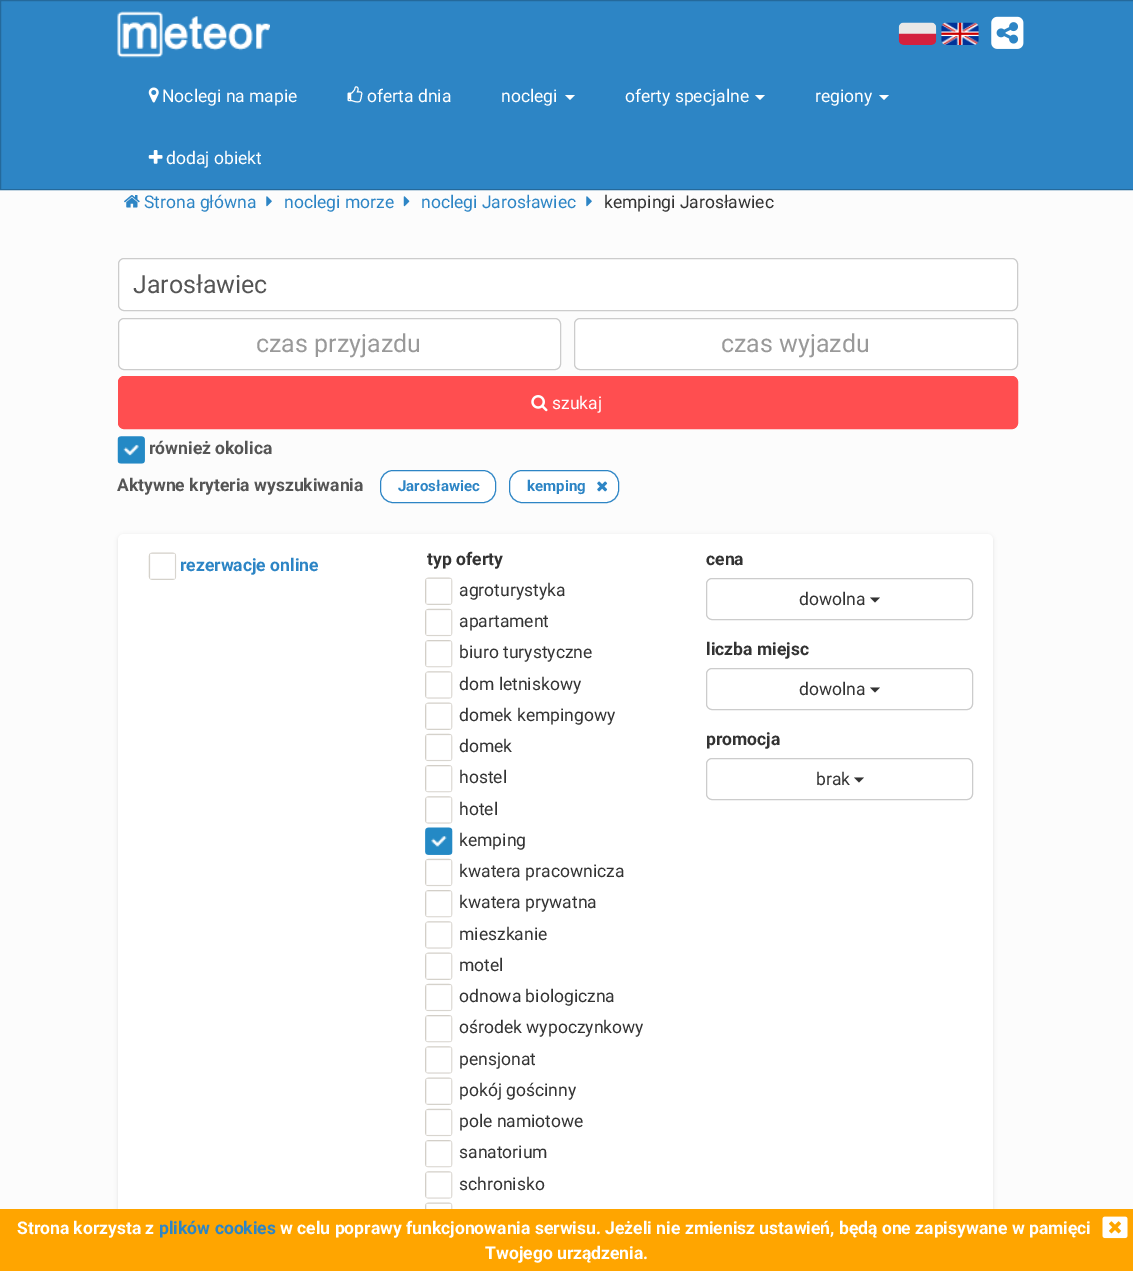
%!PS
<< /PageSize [1133 1271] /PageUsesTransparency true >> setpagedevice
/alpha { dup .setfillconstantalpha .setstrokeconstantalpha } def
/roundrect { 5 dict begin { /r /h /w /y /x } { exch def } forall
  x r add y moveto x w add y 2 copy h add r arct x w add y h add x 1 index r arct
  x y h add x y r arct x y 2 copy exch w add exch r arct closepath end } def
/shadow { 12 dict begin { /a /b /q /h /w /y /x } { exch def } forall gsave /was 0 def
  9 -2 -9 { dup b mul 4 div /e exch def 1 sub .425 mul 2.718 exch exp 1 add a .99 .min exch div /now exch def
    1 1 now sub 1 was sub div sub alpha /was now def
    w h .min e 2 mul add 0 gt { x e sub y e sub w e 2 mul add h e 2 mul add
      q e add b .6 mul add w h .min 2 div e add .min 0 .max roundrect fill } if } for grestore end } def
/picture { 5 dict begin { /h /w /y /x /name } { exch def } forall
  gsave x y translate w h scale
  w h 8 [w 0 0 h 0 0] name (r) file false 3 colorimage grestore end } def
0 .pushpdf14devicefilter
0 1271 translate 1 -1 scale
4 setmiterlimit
0.988 setgray
0 0 1133 1271 rectfill
0.176 0.522 0.773 setrgbcolor
newpath 0.5 0.5 moveto 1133.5 0.5 lineto 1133.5 189.5 lineto 0.5 189.5 lineto closepath gsave fill grestore
0.141 0.412 0.608 setrgbcolor
stroke
(img1.rgb) 117 11 153 47 picture
(img2.rgb) 898 22 39 23 picture
(img3.rgb) 941 22 38 23 picture
(img4.rgb) 991 16 33 33 picture
(img5.rgb) 148 87 11 16 picture
/Roboto-Regular [17.5 0 0 -17.5 0 0] selectfont
1 setgray
162 102 moveto (Noclegi na mapie) show
(img6.rgb) 347 86 16 17 picture
367 102 moveto (oferta dnia) show
501 102 moveto (noclegi) show
newpath 565 95 moveto 575 95 lineto 570 100 lineto closepath fill
625 102 moveto (oferty specjalne) show
newpath 755 95 moveto 765 95 lineto 760 100 lineto closepath fill
815 102 moveto (regiony) show
newpath 879 95 moveto 889 95 lineto 884 100 lineto closepath fill
(img7.rgb) 148 150 15 14 picture
166 164 moveto (dodaj obiekt) show
(img8.rgb) 124 195 16 13 picture
0.176 0.522 0.773 setrgbcolor
144 208 moveto (Strona główna) show
(img9.rgb) 266 196 6 11 picture
284 208 moveto (noclegi morze) show
(img10.rgb) 403 196 7 11 picture
421 208 moveto (noclegi Jarosławiec) show
(img9.rgb) 586 196 6 11 picture
0.2 setgray
604 208 moveto (kempingi Jarosławiec) show
1 setgray
118.5 258.5 899 52 5.5 roundrect gsave fill grestore
0.8 setgray
stroke
/Roboto-Regular [25 0 0 -25 0 0] selectfont
0.333 setgray
133 293 moveto (Jarosławiec) show
1 setgray
118.5 318.5 442 51 5.5 roundrect gsave fill grestore
0.8 setgray
stroke
0.6 setgray
256 352 moveto (czas przyjazdu) show
1 setgray
574.5 318.5 443 51 5.5 roundrect gsave fill grestore
0.8 setgray
stroke
0.6 setgray
721 352 moveto (czas wyjazdu) show
1 0.306 0.314 setrgbcolor
118.5 376.5 899 52 5.5 roundrect gsave fill grestore
stroke
(img11.rgb) 531 395 17 17 picture
/Roboto-Regular [17.5 0 0 -17.5 0 0] selectfont
1 setgray
552 409 moveto (szukaj) show
(img12.rgb) 117 436 28 28 picture
/Roboto-Bold [17.5 0 0 -17.5 0 0] selectfont
0.333 setgray
149 454 moveto (również okolica) show
117 491 moveto (Aktywne kryteria wyszukiwania) show
1 setgray
380.5 470.5 115 32 12.5 roundrect gsave fill grestore
0.176 0.522 0.773 setrgbcolor
stroke
/Roboto-Bold [15 0 0 -15 0 0] selectfont
398 491 moveto (Jarosławiec) show
1 setgray
509.5 470.5 109 32 12.5 roundrect gsave fill grestore
0.176 0.522 0.773 setrgbcolor
stroke
527 491 moveto (kemping) show
(img13.rgb) 597 481 11 11 picture
0 setgray
118 535 875 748 6 2 0.1 shadow
1 setgray
118 534 875 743 6 roundrect fill
(img14.rgb) 148 552 29 28 picture
/Roboto-Bold [17.5 0 0 -17.5 0 0] selectfont
0.176 0.522 0.773 setrgbcolor
180 571 moveto (rezerwacje online) show
0.2 setgray
427 565 moveto (typ oferty) show
(img15.rgb) 425 577 28 28 picture
/Roboto-Regular [17.5 0 0 -17.5 0 0] selectfont
459 596 moveto (agroturystyka) show
(img16.rgb) 425 608 28 29 picture
459 627 moveto (apartament) show
(img17.rgb) 425 640 28 28 picture
459 658 moveto (biuro turystyczne) show
(img18.rgb) 425 671 28 28 picture
459 690 moveto (dom letniskowy) show
(img15.rgb) 425 702 28 28 picture
459 721 moveto (domek kempingowy) show
(img16.rgb) 425 733 28 29 picture
459 752 moveto (domek) show
(img17.rgb) 425 765 28 28 picture
459 783 moveto (hostel) show
(img18.rgb) 425 796 28 28 picture
459 815 moveto (hotel) show
(img19.rgb) 425 827 28 28 picture
459 846 moveto (kemping) show
(img16.rgb) 425 858 28 29 picture
459 877 moveto (kwatera pracownicza) show
(img17.rgb) 425 890 28 28 picture
459 908 moveto (kwatera prywatna) show
(img18.rgb) 425 921 28 28 picture
459 940 moveto (mieszkanie) show
(img15.rgb) 425 952 28 28 picture
459 971 moveto (motel) show
(img16.rgb) 425 983 28 29 picture
459 1002 moveto (odnowa biologiczna) show
(img20.rgb) 425 1015 28 28 picture
459 1033 moveto (ośrodek wypoczynkowy) show
(img18.rgb) 425 1046 28 28 picture
459 1065 moveto (pensjonat) show
(img15.rgb) 425 1077 28 28 picture
459 1096 moveto (pokój gościnny) show
(img16.rgb) 425 1108 28 29 picture
459 1127 moveto (pole namiotowe) show
(img17.rgb) 425 1140 28 28 picture
459 1158 moveto (sanatorium) show
(img21.rgb) 425 1171 28 28 picture
459 1190 moveto (schronisko) show
(img22.rgb) 425 1202 28 7 picture
/Roboto-Bold [17.5 0 0 -17.5 0 0] selectfont
706 565 moveto (cena) show
0.8 setgray
706.5 578.5 266 41 5.5 roundrect stroke
/Roboto-Regular [17.5 0 0 -17.5 0 0] selectfont
0.2 setgray
799 605 moveto (dowolna) show
newpath 870 597.5 moveto 880 597.5 lineto 875 602.5 lineto closepath fill
/Roboto-Bold [17.5 0 0 -17.5 0 0] selectfont
706 655 moveto (liczba miejsc) show
0.8 setgray
706.5 668.5 266 41 5.5 roundrect stroke
/Roboto-Regular [17.5 0 0 -17.5 0 0] selectfont
0.2 setgray
799 695 moveto (dowolna) show
newpath 870 687.5 moveto 880 687.5 lineto 875 692.5 lineto closepath fill
/Roboto-Bold [17.5 0 0 -17.5 0 0] selectfont
706 745 moveto (promocja) show
0.8 setgray
706.5 758.5 266 41 5.5 roundrect stroke
/Roboto-Regular [17.5 0 0 -17.5 0 0] selectfont
0.2 setgray
816 785 moveto (brak) show
newpath 854 777.5 moveto 864 777.5 lineto 859 782.5 lineto closepath fill
1 0.647 0 setrgbcolor
0 1209 1133 62 rectfill
/Roboto-Bold [17.5 0 0 -17.5 0 0] selectfont
1 setgray
17 1234 moveto (Strona korzysta z) show
0.176 0.522 0.773 setrgbcolor
159 1234 moveto (plików cookies) show
1 setgray
280 1234 moveto (w celu poprawy funkcjonowania serwisu. Jeżeli nie zmienisz ustawień, będą one zapisywane w pamięci) show
485 1259 moveto (Twojego urządzenia.) show
(img23.rgb) 1102 1216 26 23 picture
.poppdf14devicefilter showpage
